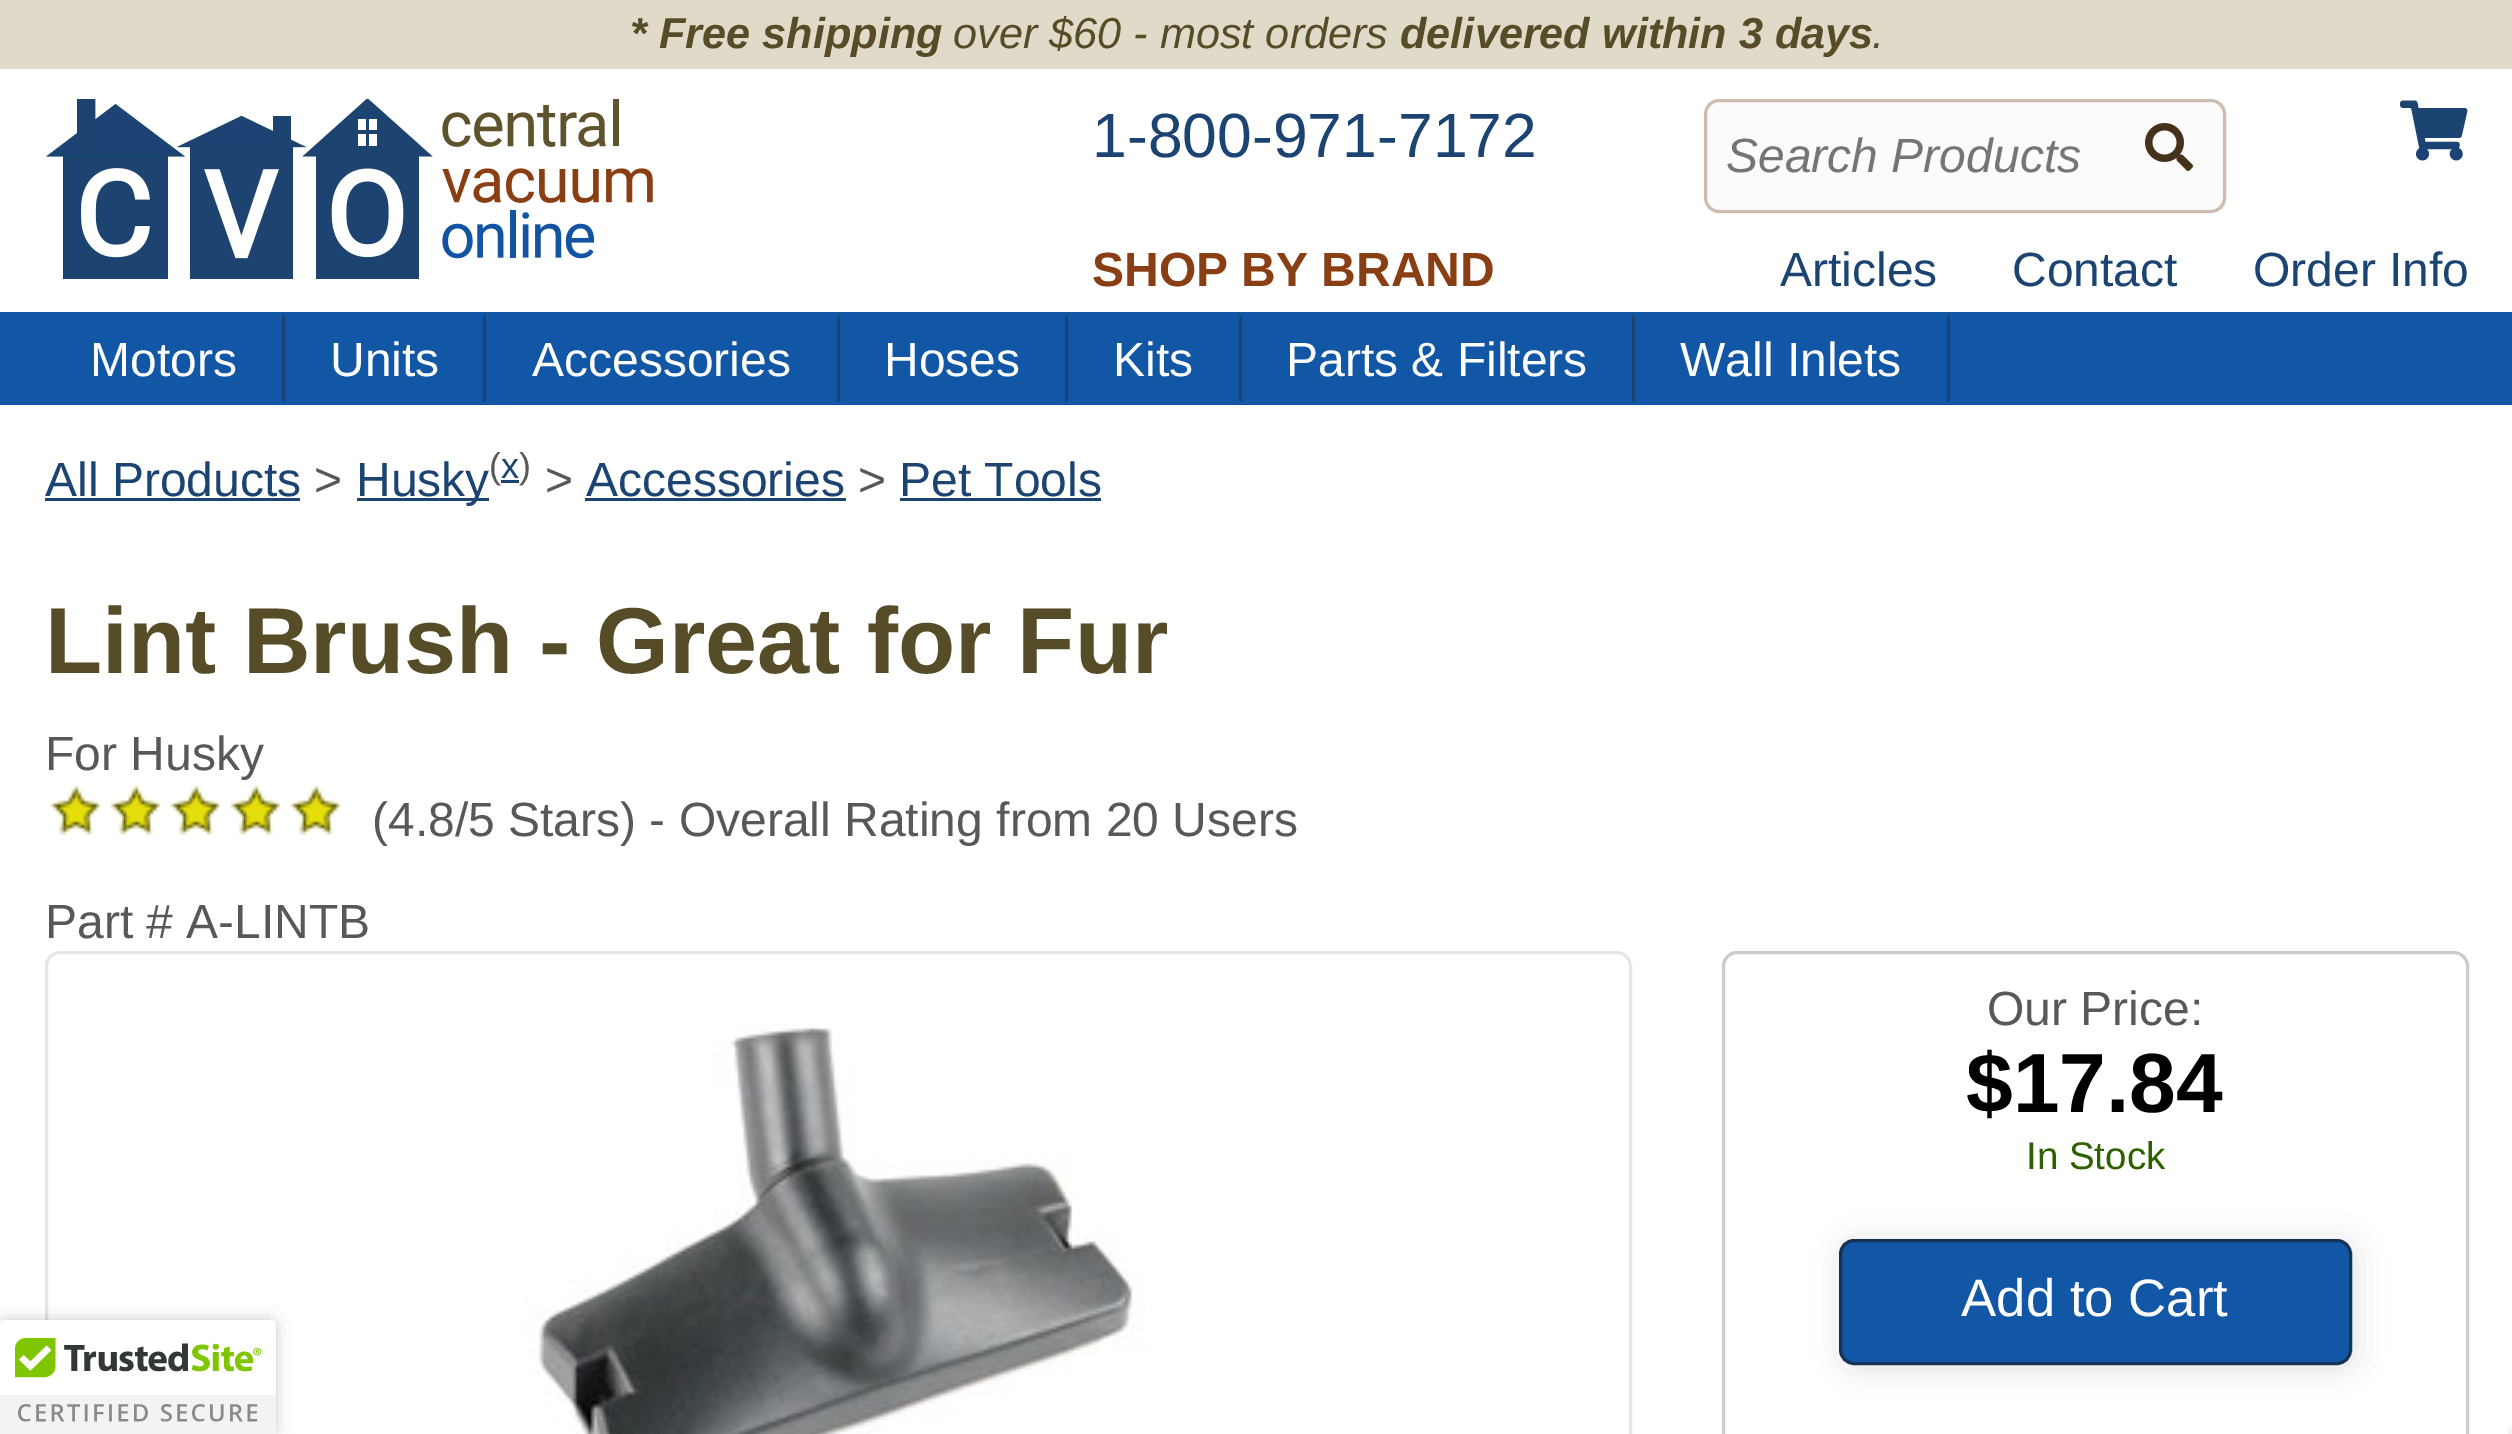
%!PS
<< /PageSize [2512 1434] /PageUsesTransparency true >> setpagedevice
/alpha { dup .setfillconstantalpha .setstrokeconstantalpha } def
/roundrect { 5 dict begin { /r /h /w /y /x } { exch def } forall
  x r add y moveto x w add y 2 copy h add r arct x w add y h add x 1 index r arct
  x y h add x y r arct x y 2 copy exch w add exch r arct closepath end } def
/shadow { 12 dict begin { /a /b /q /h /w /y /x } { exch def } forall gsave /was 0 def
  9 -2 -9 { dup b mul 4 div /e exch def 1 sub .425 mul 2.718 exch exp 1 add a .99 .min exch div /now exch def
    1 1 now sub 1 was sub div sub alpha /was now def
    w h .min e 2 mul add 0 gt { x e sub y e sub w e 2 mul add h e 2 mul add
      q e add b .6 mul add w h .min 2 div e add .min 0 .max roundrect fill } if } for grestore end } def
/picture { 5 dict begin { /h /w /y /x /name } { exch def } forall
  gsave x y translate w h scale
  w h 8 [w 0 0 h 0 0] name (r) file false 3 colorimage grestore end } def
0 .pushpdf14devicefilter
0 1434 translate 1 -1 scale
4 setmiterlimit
1 setgray
0 0 2512 1434 rectfill
0.878 0.859 0.788 setrgbcolor
0 0 2512 69 rectfill
/LiberationSans-BoldItalic [43.25 0 0 -43.25 0 0] selectfont
0.341 0.298 0.157 setrgbcolor
630 48 moveto (* Free shipping) show
/LiberationSans-Italic [43.25 0 0 -43.25 0 0] selectfont
953 48 moveto (over $60 - most orders) show
/LiberationSans-BoldItalic [43.25 0 0 -43.25 0 0] selectfont
1400 48 moveto (delivered within 3 days) show
/LiberationSans-Italic [43.25 0 0 -43.25 0 0] selectfont
1872 48 moveto (.) show
(img1.rgb) 45 99 608 180 picture
/LiberationSans-Regular [62.5 0 0 -62.5 0 0] selectfont
0.11 0.267 0.447 setrgbcolor
1092 157 moveto (1-800-971-7172) show
0.988 0.984 0.984 setrgbcolor
1705.5 100.5 519 111 13.5 roundrect gsave fill grestore
0.812 0.737 0.69 setrgbcolor
3 setlinewidth
stroke
/LiberationSans-Italic [48 0 0 -48 0 0] selectfont
0.459 setgray
1726 172 moveto (Search Products) show
(img2.rgb) 2145 123 48 48 picture
(img3.rgb) 2400 100 68 61 picture
/LiberationSans-Bold [48 0 0 -48 0 0] selectfont
0.541 0.243 0.075 setrgbcolor
1092 286 moveto (SHOP BY BRAND) show
/LiberationSans-Regular [48 0 0 -48 0 0] selectfont
0.11 0.267 0.447 setrgbcolor
1780 286 moveto (Articles) show
2012 286 moveto (Contact) show
2253 286 moveto (Order Info) show
0.071 0.341 0.647 setrgbcolor
0 312 2512 93 rectfill
0.11 0.267 0.447 setrgbcolor
282 315 3 87 rectfill
1 setgray
90 376 moveto (Motors) show
0.11 0.267 0.447 setrgbcolor
483 315 3 87 rectfill
1 setgray
330 376 moveto (Units) show
0.11 0.267 0.447 setrgbcolor
837 315 3 87 rectfill
1 setgray
532 376 moveto (Accessories) show
0.11 0.267 0.447 setrgbcolor
1065 315 3 87 rectfill
1 setgray
884 376 moveto (Hoses) show
0.11 0.267 0.447 setrgbcolor
1239 315 3 87 rectfill
1 setgray
1113 376 moveto (Kits) show
0.11 0.267 0.447 setrgbcolor
1632 315 3 87 rectfill
1 setgray
1286 376 moveto (Parts & Filters) show
0.11 0.267 0.447 setrgbcolor
1947 315 3 87 rectfill
1 setgray
1680 376 moveto (Wall Inlets) show
0.11 0.267 0.447 setrgbcolor
45 496 moveto (All Products) show
45 498 255 3 rectfill
0.345 setgray
314 496 moveto (>) show
0.11 0.267 0.447 setrgbcolor
357 498 132 3 rectfill
356 496 moveto (Husky) show
/LiberationSans-Regular [36 0 0 -36 0 0] selectfont
0.345 setgray
489 478 moveto (\() show
0.11 0.267 0.447 setrgbcolor
501 480 18 3 rectfill
501 478 moveto (x) show
0.345 setgray
519 478 moveto (\)) show
/LiberationSans-Regular [48 0 0 -48 0 0] selectfont
545 496 moveto (>) show
0.11 0.267 0.447 setrgbcolor
586 496 moveto (Accessories) show
585 498 261 3 rectfill
0.345 setgray
858 496 moveto (>) show
0.11 0.267 0.447 setrgbcolor
899 496 moveto (Pet Tools) show
900 498 201 3 rectfill
/LiberationSans-Bold [93.6 0 0 -93.6 0 0] selectfont
0.341 0.298 0.157 setrgbcolor
45 673 moveto (Lint Brush - Great for Fur) show
/LiberationSans-Regular [48 0 0 -48 0 0] selectfont
0.345 setgray
45 770 moveto (For Husky) show
(img4.rgb) 50 785 292 52 picture
372 836 moveto (\(4.8/5 Stars\) - Overall Rating from 20 Users) show
45 938 moveto (Part # A-LINTB) show
0.902 setgray
46.5 952.5 1584 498 13.5 roundrect stroke
(img5.rgb) 525 1024 621 410 picture
0.796 setgray
1723.5 952.5 744 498 13.5 roundrect stroke
0.345 setgray
1987 1025 moveto (Our Price:) show
/LiberationSans-Bold [84 0 0 -84 0 0] selectfont
0 setgray
1966 1112 moveto ($17.84) show
/LiberationSans-Regular [38.5 0 0 -38.5 0 0] selectfont
0.176 0.38 0 setrgbcolor
2026 1169 moveto (In Stock) show
0.867 0.875 0.871 setrgbcolor
1842 1242 513 126 15 15 1 shadow
0.071 0.341 0.647 setrgbcolor
1840.5 1240.5 510 123 13.5 roundrect gsave fill grestore
0.086 0.196 0.333 setrgbcolor
stroke
/LiberationSans-Regular [52.75 0 0 -52.75 0 0] selectfont
1 setgray
1961 1316 moveto (Add to Cart) show
0 setgray
0 1320 276 114 6 7.5 0.2 shadow
1 setgray
newpath 0 1320 moveto 270 1320 lineto 273.5 1320 276 1322.5 276 1326 curveto 276 1434 lineto 0 1434 lineto closepath fill
(img6.rgb) 0 1320 276 114 picture
0.961 setgray
2508 1428 4 6 rectfill
.poppdf14devicefilter showpage
